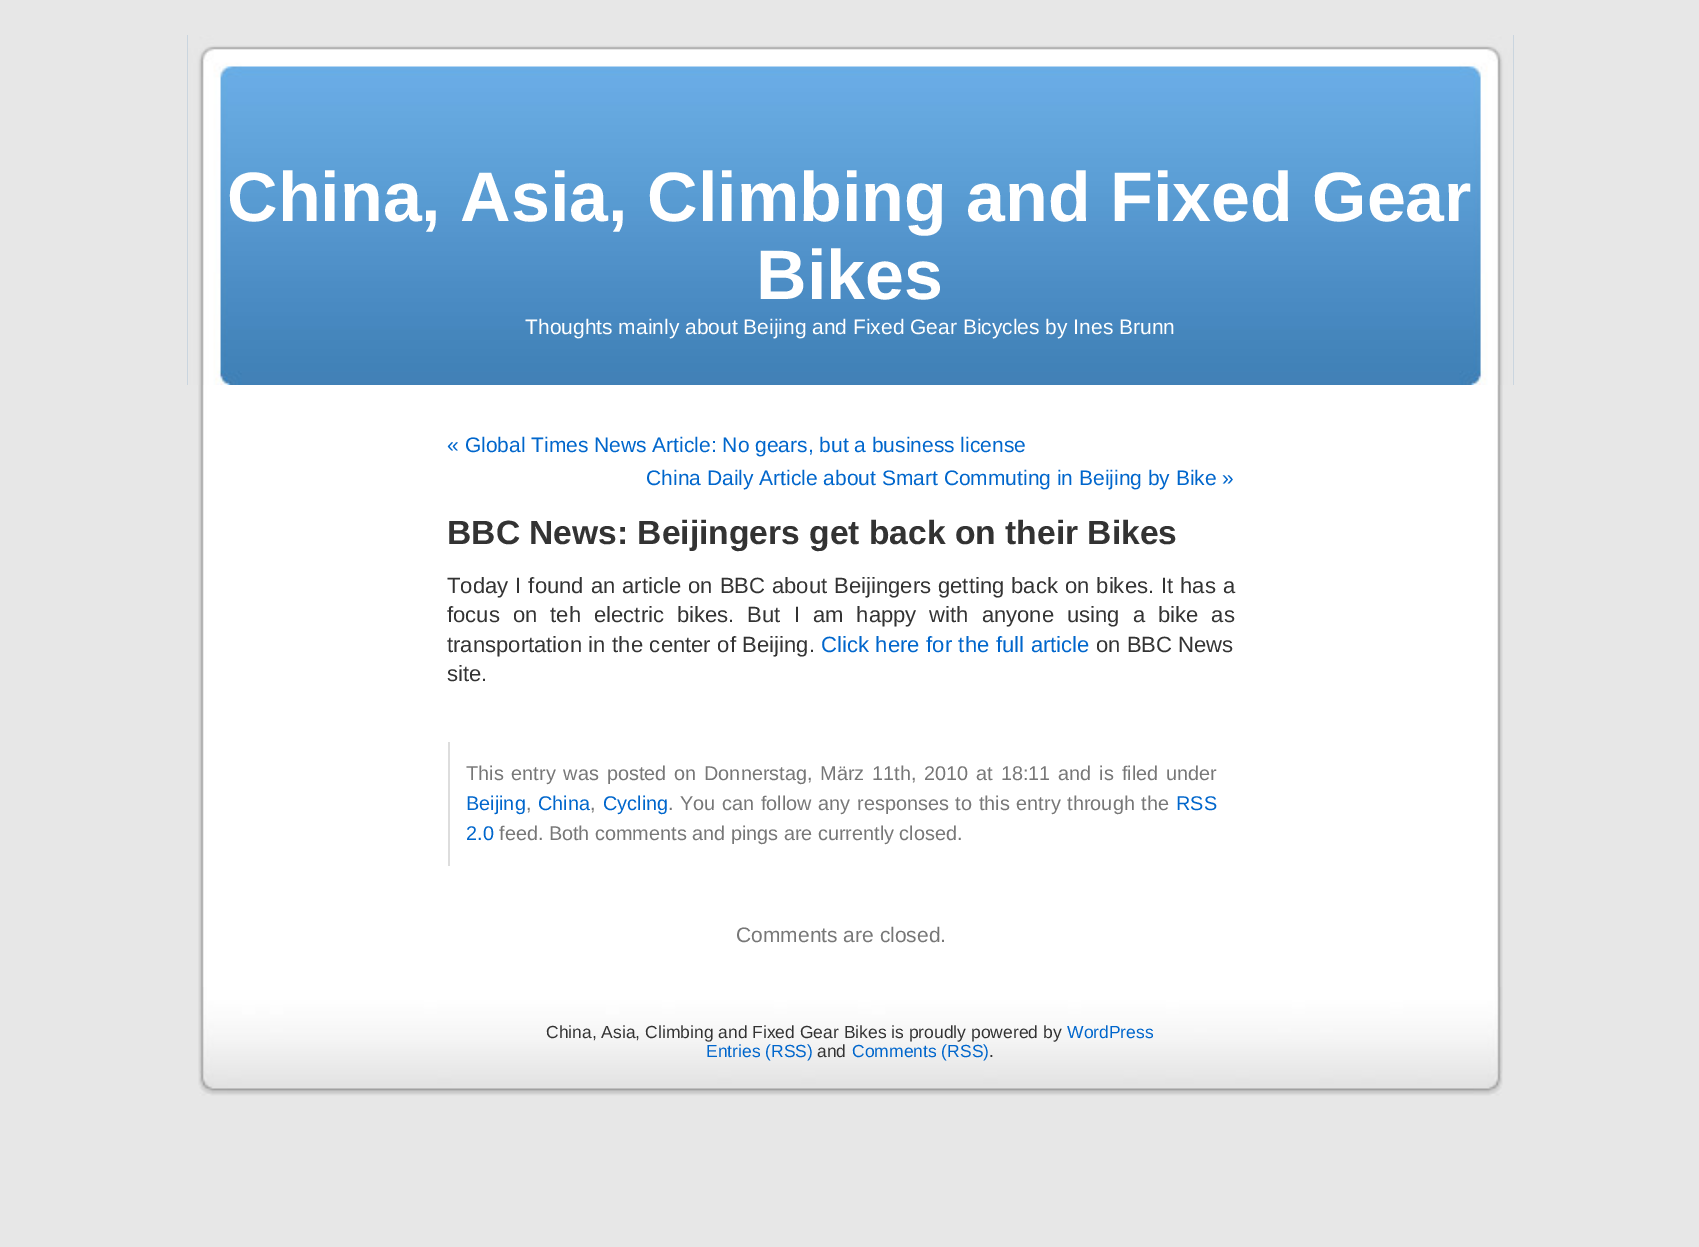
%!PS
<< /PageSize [1699 1247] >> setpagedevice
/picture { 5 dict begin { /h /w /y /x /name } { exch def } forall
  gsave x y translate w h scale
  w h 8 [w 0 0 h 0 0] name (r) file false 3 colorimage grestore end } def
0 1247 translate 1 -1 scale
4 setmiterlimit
0.906 setgray
0 0 1699 1247 rectfill
(img1.rgb) 198 385 1305 602 picture
(img2.rgb) 187 35 1327 350 picture
/LiberationSans-Bold [70 0 0 -70 0 0] selectfont
1 setgray
227 221 moveto (China, Asia, Climbing and Fixed Gear) show
756 299 moveto (Bikes) show
/LiberationSans-Regular [21 0 0 -21 0 0] selectfont
525 334 moveto (Thoughts mainly about Beijing and Fixed Gear Bicycles by Ines Brunn) show
0 0.4 0.8 setrgbcolor
447 452 moveto (« Global Times News Article: No gears, but a business license) show
646 485 moveto (China Daily Article about Smart Commuting in Beijing by Bike ») show
/LiberationSans-Bold [33.6 0 0 -33.6 0 0] selectfont
0.2 setgray
447 544 moveto (BBC News: Beijingers get back on their Bikes) show
/LiberationSans-Regular [22.05 0 0 -22.05 0 0] selectfont
447 593 moveto 0.9 0 32 (Today I found an article on BBC about Beijingers getting back on bikes. It has a) widthshow
447 622 moveto 6.9 0 32 (focus on teh electric bikes. But I am happy with anyone using a bike as) widthshow
447 652 moveto 0.5 0 32 (transportation in the center of Beijing.) widthshow
0 0.4 0.8 setrgbcolor
821 652 moveto 0.5 0 32 (Click here for the full article) widthshow
0.2 setgray
1096 652 moveto (on BBC News) show
447 681 moveto (site.) show
0.867 setgray
448 742 2 124 rectfill
/LiberationSans-Regular [19.85 0 0 -19.85 0 0] selectfont
0.467 setgray
466 780 moveto 2.4 0 32 (This entry was posted on Donnerstag, März 11th, 2010 at 18:11 and is filed under) widthshow
0 0.4 0.8 setrgbcolor
466 810 moveto (Beijing) show
0.467 setgray
526 810 moveto (,) show
0 0.4 0.8 setrgbcolor
538 810 moveto (China) show
0.467 setgray
590 810 moveto (,) show
0 0.4 0.8 setrgbcolor
603 810 moveto (Cycling) show
0.467 setgray
668 810 moveto (.) show
680 810 moveto 1.25 0 32 (You can follow any responses to this entry through the) widthshow
0 0.4 0.8 setrgbcolor
1176 810 moveto (RSS) show
466 840 moveto (2.0) show
0.467 setgray
499 840 moveto (feed. Both comments and pings are currently closed.) show
/LiberationSans-Regular [21 0 0 -21 0 0] selectfont
736 942 moveto (Comments are closed.) show
(img3.rgb) 198 987 1305 109 picture
/LiberationSans-Regular [17.5 0 0 -17.5 0 0] selectfont
0.2 setgray
546 1038 moveto (China, Asia, Climbing and Fixed Gear Bikes is proudly powered by) show
0 0.4 0.8 setrgbcolor
1067 1038 moveto (WordPress) show
706 1057 moveto (Entries \(RSS\)) show
0.2 setgray
817 1057 moveto (and) show
0 0.4 0.8 setrgbcolor
852 1057 moveto (Comments \(RSS\)) show
0.2 setgray
989 1057 moveto (.) show
showpage
